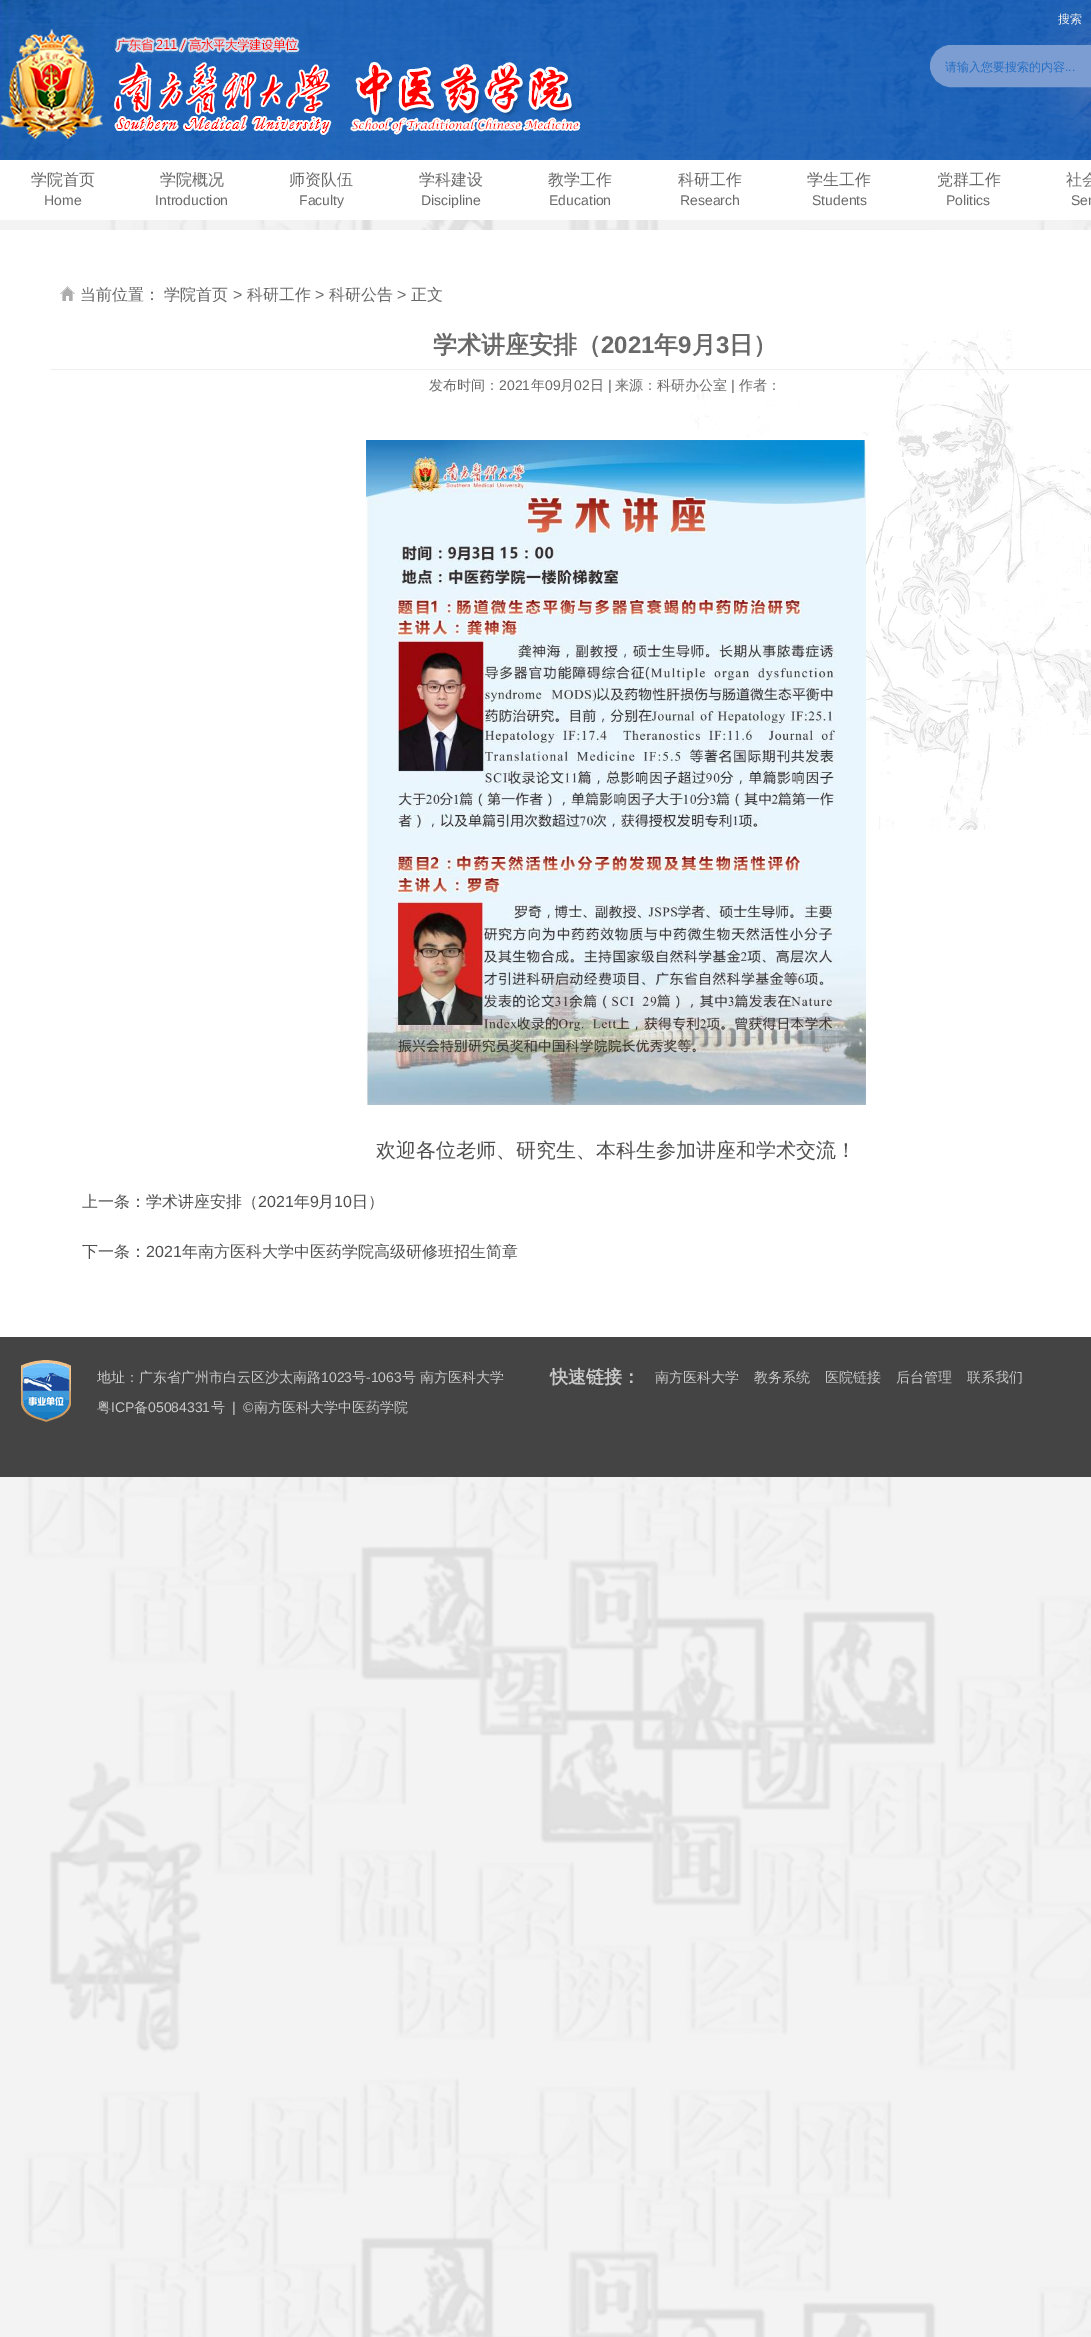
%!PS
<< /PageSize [1091 2337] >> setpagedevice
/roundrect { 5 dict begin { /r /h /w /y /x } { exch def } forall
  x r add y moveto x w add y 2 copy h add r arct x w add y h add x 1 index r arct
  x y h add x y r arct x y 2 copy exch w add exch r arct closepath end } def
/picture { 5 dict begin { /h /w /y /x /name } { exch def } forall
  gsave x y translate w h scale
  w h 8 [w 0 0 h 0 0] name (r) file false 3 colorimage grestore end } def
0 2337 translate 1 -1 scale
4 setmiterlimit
1 setgray
0 0 1091 2337 rectfill
(img1.rgb) 0 220 1091 2117 picture
(img2.rgb) 0 0 1091 160 picture
(img3.rgb) 0 29 581 110 picture
/WenQuanYiZenHei-Medium [12 0 0 -12 0 0] selectfont
0.937 setgray
1058 23 moveto (搜索) show
0.486 0.616 0.82 setrgbcolor
931 46 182 40 20 roundrect gsave fill grestore
2 setlinewidth
stroke
0.153 0.435 0.769 setrgbcolor
945 71 moveto (请输入您要搜索的内容) show
/LiberationSans-Regular [12 0 0 -12 0 0] selectfont
1065 71 moveto (...) show
/WenQuanYiZenHei-Medium [16 0 0 -16 0 0] selectfont
0.412 setgray
31 185 moveto (学院首页) show
/LiberationSans-Regular [14 0 0 -14 0 0] selectfont
44 205 moveto (Home) show
/WenQuanYiZenHei-Medium [16 0 0 -16 0 0] selectfont
160 185 moveto (学院概况) show
/LiberationSans-Regular [14 0 0 -14 0 0] selectfont
155 205 moveto (Introduction) show
/WenQuanYiZenHei-Medium [16 0 0 -16 0 0] selectfont
289 185 moveto (师资队伍) show
/LiberationSans-Regular [14 0 0 -14 0 0] selectfont
299 205 moveto (Faculty) show
/WenQuanYiZenHei-Medium [16 0 0 -16 0 0] selectfont
419 185 moveto (学科建设) show
/LiberationSans-Regular [14 0 0 -14 0 0] selectfont
421 205 moveto (Discipline) show
/WenQuanYiZenHei-Medium [16 0 0 -16 0 0] selectfont
548 185 moveto (教学工作) show
/LiberationSans-Regular [14 0 0 -14 0 0] selectfont
549 205 moveto (Education) show
/WenQuanYiZenHei-Medium [16 0 0 -16 0 0] selectfont
678 185 moveto (科研工作) show
/LiberationSans-Regular [14 0 0 -14 0 0] selectfont
680 205 moveto (Research) show
/WenQuanYiZenHei-Medium [16 0 0 -16 0 0] selectfont
807 185 moveto (学生工作) show
/LiberationSans-Regular [14 0 0 -14 0 0] selectfont
812 205 moveto (Students) show
/WenQuanYiZenHei-Medium [16 0 0 -16 0 0] selectfont
937 185 moveto (党群工作) show
/LiberationSans-Regular [14 0 0 -14 0 0] selectfont
946 205 moveto (Politics) show
/WenQuanYiZenHei-Medium [16 0 0 -16 0 0] selectfont
1066 185 moveto (社会) show
/LiberationSans-Regular [14 0 0 -14 0 0] selectfont
1071 205 moveto (Ser) show
1 setgray
0 230 1091 1107 rectfill
(img4.rgb) 692 330 399 500 picture
(img5.rgb) 60 286 15 15 picture
/WenQuanYiZenHei-Medium [16 0 0 -16 0 0] selectfont
0.412 setgray
80 300 moveto (当前位置：) show
164 300 moveto (学院首页) show
/LiberationSans-Regular [16 0 0 -16 0 0] selectfont
233 300 moveto (>) show
/WenQuanYiZenHei-Medium [16 0 0 -16 0 0] selectfont
247 300 moveto (科研工作) show
/LiberationSans-Regular [16 0 0 -16 0 0] selectfont
315 300 moveto (>) show
/WenQuanYiZenHei-Medium [16 0 0 -16 0 0] selectfont
329 300 moveto (科研公告) show
/LiberationSans-Regular [16 0 0 -16 0 0] selectfont
397 300 moveto (>) show
/WenQuanYiZenHei-Medium [16 0 0 -16 0 0] selectfont
411 300 moveto (正文) show
0.937 setgray
50 369 1041 1 rectfill
/WenQuanYiZenHei-Bold [24 0 0 -24 0 0] selectfont
0.412 setgray
433 353 moveto (学术讲座安排（) show
/LiberationSans-Bold [24 0 0 -24 0 0] selectfont
601 353 moveto (2021) show
/WenQuanYiZenHei-Bold [24 0 0 -24 0 0] selectfont
654 353 moveto (年) show
/LiberationSans-Bold [24 0 0 -24 0 0] selectfont
678 353 moveto (9) show
/WenQuanYiZenHei-Bold [24 0 0 -24 0 0] selectfont
692 353 moveto (月) show
/LiberationSans-Bold [24 0 0 -24 0 0] selectfont
716 353 moveto (3) show
/WenQuanYiZenHei-Bold [24 0 0 -24 0 0] selectfont
729 353 moveto (日）) show
/WenQuanYiZenHei-Medium [14 0 0 -14 0 0] selectfont
429 390 moveto (发布时间：) show
/LiberationSans-Regular [14 0 0 -14 0 0] selectfont
499 390 moveto (2021) show
/WenQuanYiZenHei-Medium [14 0 0 -14 0 0] selectfont
531 390 moveto (年) show
/LiberationSans-Regular [14 0 0 -14 0 0] selectfont
545 390 moveto (09) show
/WenQuanYiZenHei-Medium [14 0 0 -14 0 0] selectfont
560 390 moveto (月) show
/LiberationSans-Regular [14 0 0 -14 0 0] selectfont
574 390 moveto (02) show
/WenQuanYiZenHei-Medium [14 0 0 -14 0 0] selectfont
590 390 moveto (日) show
/LiberationSans-Regular [14 0 0 -14 0 0] selectfont
608 390 moveto (|) show
/WenQuanYiZenHei-Medium [14 0 0 -14 0 0] selectfont
615 390 moveto (来源：科研办公室) show
/LiberationSans-Regular [14 0 0 -14 0 0] selectfont
731 390 moveto (|) show
/WenQuanYiZenHei-Medium [14 0 0 -14 0 0] selectfont
739 390 moveto (作者：) show
(img6.rgb) 366 440 500 665 picture
/WenQuanYiZenHei-Medium [20 0 0 -20 0 0] selectfont
0.314 setgray
376 1157 moveto (欢迎各位老师、研究生、本科生参加讲座和学术交流！) show
/WenQuanYiZenHei-Medium [16 0 0 -16 0 0] selectfont
82 1207 moveto (上一条：学术讲座安排（) show
/LiberationSans-Regular [16 0 0 -16 0 0] selectfont
258 1207 moveto (2021) show
/WenQuanYiZenHei-Medium [16 0 0 -16 0 0] selectfont
294 1207 moveto (年) show
/LiberationSans-Regular [16 0 0 -16 0 0] selectfont
310 1207 moveto (9) show
/WenQuanYiZenHei-Medium [16 0 0 -16 0 0] selectfont
318 1207 moveto (月) show
/LiberationSans-Regular [16 0 0 -16 0 0] selectfont
334 1207 moveto (10) show
/WenQuanYiZenHei-Medium [16 0 0 -16 0 0] selectfont
352 1207 moveto (日）) show
82 1257 moveto (下一条：) show
/LiberationSans-Regular [16 0 0 -16 0 0] selectfont
146 1257 moveto (2021) show
/WenQuanYiZenHei-Medium [16 0 0 -16 0 0] selectfont
182 1257 moveto (年南方医科大学中医药学院高级研修班招生简章) show
0.267 setgray
0 1337 1091 140 rectfill
(img7.rgb) 21 1360 50 62 picture
/WenQuanYiZenHei-Medium [14 0 0 -14 0 0] selectfont
0.788 setgray
97 1382 moveto (地址：广东省广州市白云区沙太南路) show
/LiberationSans-Regular [14 0 0 -14 0 0] selectfont
321 1382 moveto (1023) show
/WenQuanYiZenHei-Medium [14 0 0 -14 0 0] selectfont
352 1382 moveto (号) show
/LiberationSans-Regular [14 0 0 -14 0 0] selectfont
366 1382 moveto (-1063) show
/WenQuanYiZenHei-Medium [14 0 0 -14 0 0] selectfont
402 1382 moveto (号 南方医科大学) show
97 1412 moveto (粤) show
/LiberationSans-Regular [14 0 0 -14 0 0] selectfont
111 1412 moveto (ICP) show
/WenQuanYiZenHei-Medium [14 0 0 -14 0 0] selectfont
134 1412 moveto (备) show
/LiberationSans-Regular [14 0 0 -14 0 0] selectfont
148 1412 moveto (05084331) show
/WenQuanYiZenHei-Medium [14 0 0 -14 0 0] selectfont
211 1412 moveto (号) show
/LiberationSans-Regular [14 0 0 -14 0 0] selectfont
232 1412 moveto (|  ©) show
/WenQuanYiZenHei-Medium [14 0 0 -14 0 0] selectfont
254 1412 moveto (南方医科大学中医药学院) show
/WenQuanYiZenHei-Bold [18 0 0 -18 0 0] selectfont
550 1383 moveto (快速链接：) show
/WenQuanYiZenHei-Medium [14 0 0 -14 0 0] selectfont
655 1382 moveto (南方医科大学) show
754 1382 moveto (教务系统) show
825 1382 moveto (医院链接) show
896 1382 moveto (后台管理) show
967 1382 moveto (联系我们) show
showpage
